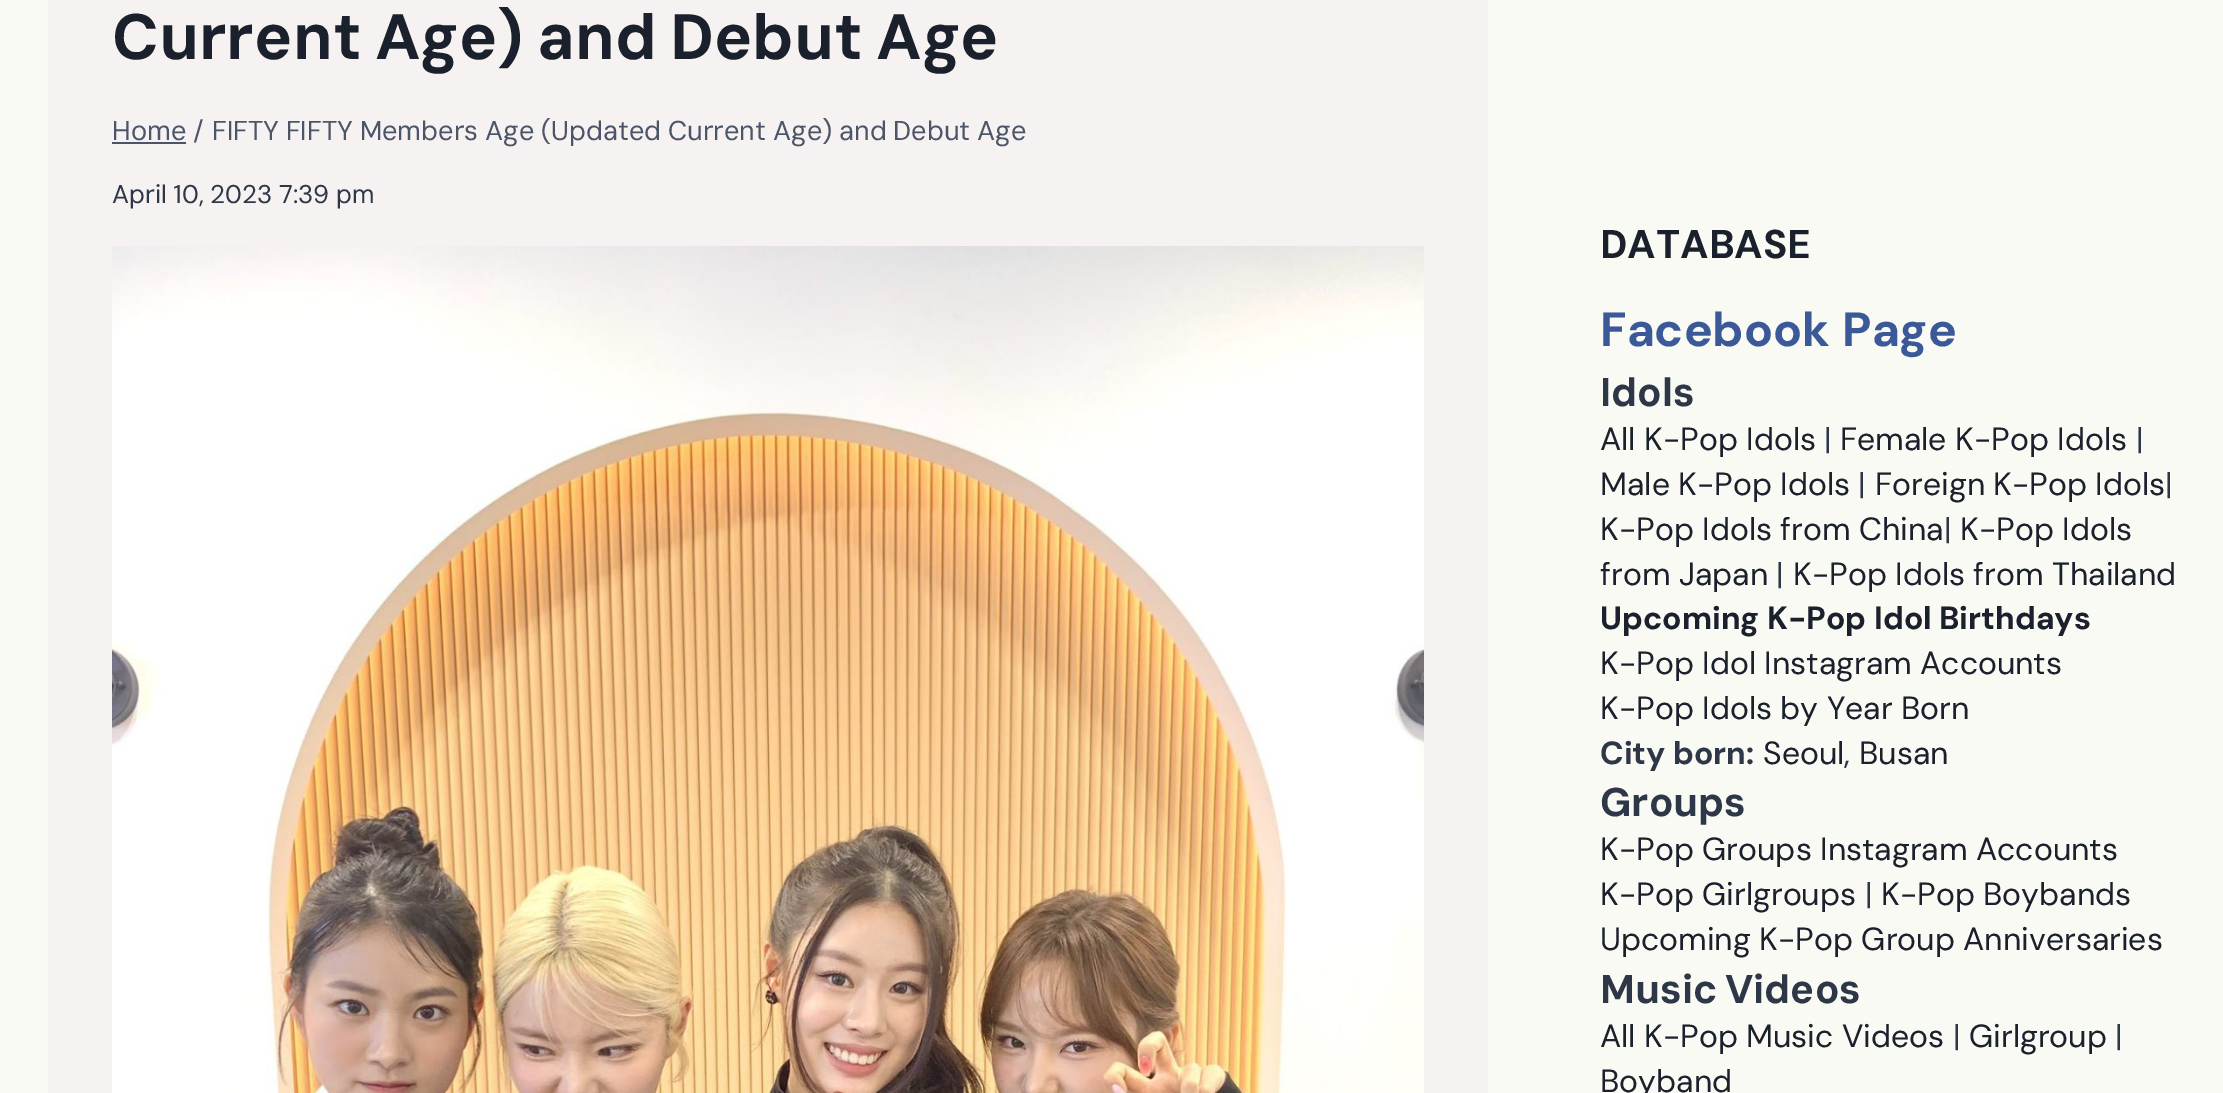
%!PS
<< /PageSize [2223 1093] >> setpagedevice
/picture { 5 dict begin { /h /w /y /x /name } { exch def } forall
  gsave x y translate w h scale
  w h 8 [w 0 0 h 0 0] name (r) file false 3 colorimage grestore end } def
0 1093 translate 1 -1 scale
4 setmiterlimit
0.98 0.98 0.957 setrgbcolor
0 0 2223 1093 rectfill
0.969 0.949 0.949 setrgbcolor
48 0 1440 1093 rectfill
/DMSans-Bold [64 0 0 -64 0 0] selectfont
0.102 0.125 0.173 setrgbcolor
112 59 moveto -2 0 32 (Current Age\) and Debut Age) widthshow
0.29 0.333 0.408 setrgbcolor
112 142 74 2 rectfill
/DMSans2-Regular [27.2 0 0 -27.2 0 0] selectfont
112 140 moveto (Home /) show
212 140 moveto -0.5 0 32 (FIFTY FIFTY Members Age \(Updated Current Age\) and Debut Age) widthshow
/DMSans2-Regular [25.6 0 0 -25.6 0 0] selectfont
0.176 0.216 0.282 setrgbcolor
112 203 moveto -0.5 0 32 (April 10, 2023 7:39 pm) widthshow
(img1.rgb) 112 246 1312 847 picture
/DMSans-Bold [40 0 0 -40 0 0] selectfont
0.102 0.125 0.173 setrgbcolor
1600 258 moveto (DATABASE) show
/DMSans2-Bold [48 0 0 -48 0 0] selectfont
0.231 0.349 0.596 setrgbcolor
1600 346 moveto 1 0 32 (Facebook Page) widthshow
/DMSans-Bold [40 0 0 -40 0 0] selectfont
0.176 0.216 0.282 setrgbcolor
1600 406 moveto (Idols) show
/DMSans-Regular [32 0 0 -32 0 0] selectfont
0.102 0.125 0.173 setrgbcolor
1600 450 moveto (All K-Pop Idols) show
0.176 0.216 0.282 setrgbcolor
1824 450 moveto (|) show
0.102 0.125 0.173 setrgbcolor
1840 450 moveto (Female K-Pop Idols) show
0.176 0.216 0.282 setrgbcolor
2136 450 moveto (|) show
0.102 0.125 0.173 setrgbcolor
1600 495 moveto (Male K-Pop Idols) show
0.176 0.216 0.282 setrgbcolor
1858 495 moveto (|) show
0.102 0.125 0.173 setrgbcolor
1875 495 moveto (Foreign K-Pop Idols) show
0.176 0.216 0.282 setrgbcolor
2165 495 moveto (|) show
0.102 0.125 0.173 setrgbcolor
1600 540 moveto (K-Pop Idols from China) show
0.176 0.216 0.282 setrgbcolor
1944 540 moveto (|) show
0.102 0.125 0.173 setrgbcolor
1960 540 moveto (K-Pop Idols) show
1600 585 moveto (from Japan) show
0.176 0.216 0.282 setrgbcolor
1776 585 moveto (|) show
0.102 0.125 0.173 setrgbcolor
1793 585 moveto (K-Pop Idols from Thailand) show
/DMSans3-Bold [32 0 0 -32 0 0] selectfont
1600 629 moveto (Upcoming K-Pop Idol Birthdays) show
/DMSans-Regular [32 0 0 -32 0 0] selectfont
1600 674 moveto (K-Pop Idol Instagram Accounts) show
1600 719 moveto (K-Pop Idols by Year Born) show
/DMSans3-Bold [32 0 0 -32 0 0] selectfont
0.176 0.216 0.282 setrgbcolor
1600 764 moveto (City born:) show
/DMSans-Regular [32 0 0 -32 0 0] selectfont
0.102 0.125 0.173 setrgbcolor
1763 764 moveto (Seoul) show
0.176 0.216 0.282 setrgbcolor
1844 764 moveto (,) show
0.102 0.125 0.173 setrgbcolor
1859 764 moveto (Busan) show
/DMSans-Bold [40 0 0 -40 0 0] selectfont
0.176 0.216 0.282 setrgbcolor
1600 816 moveto (Groups) show
/DMSans-Regular [32 0 0 -32 0 0] selectfont
0.102 0.125 0.173 setrgbcolor
1600 860 moveto (K-Pop Groups Instagram Accounts) show
1600 905 moveto (K-Pop Girlgroups) show
0.176 0.216 0.282 setrgbcolor
1865 905 moveto (|) show
0.102 0.125 0.173 setrgbcolor
1881 905 moveto (K-Pop Boybands) show
1600 950 moveto (Upcoming K-Pop Group Anniversaries) show
/DMSans-Bold [40 0 0 -40 0 0] selectfont
0.176 0.216 0.282 setrgbcolor
1600 1003 moveto -2 0 32 (Music Videos) widthshow
/DMSans-Regular [32 0 0 -32 0 0] selectfont
0.102 0.125 0.173 setrgbcolor
1600 1047 moveto (All K-Pop Music Videos) show
0.176 0.216 0.282 setrgbcolor
1953 1047 moveto (|) show
0.102 0.125 0.173 setrgbcolor
1969 1047 moveto (Girlgroup) show
0.176 0.216 0.282 setrgbcolor
2115 1047 moveto (|) show
0.102 0.125 0.173 setrgbcolor
1600 1092 moveto (Boyband) show
showpage
